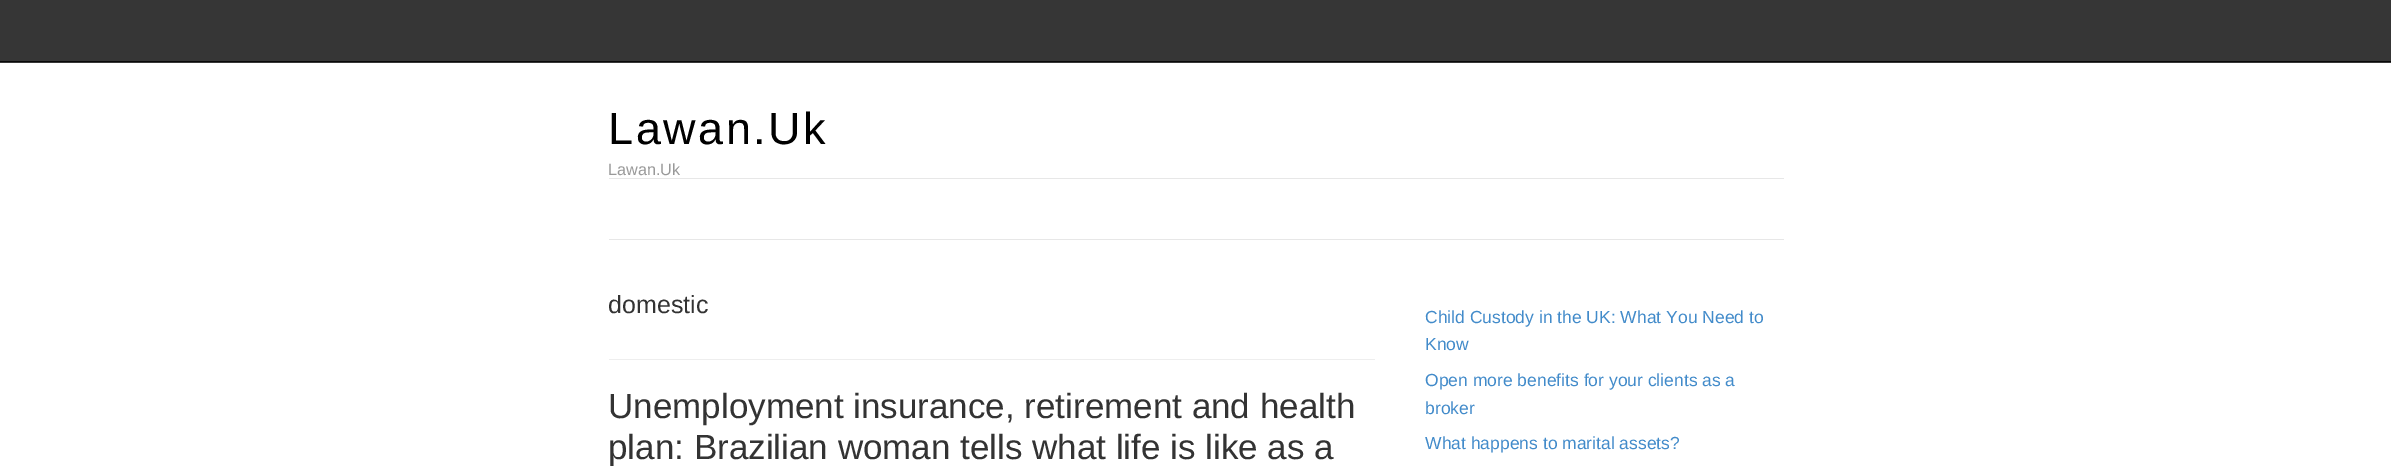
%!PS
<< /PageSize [2391 466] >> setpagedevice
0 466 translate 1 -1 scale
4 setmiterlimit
1 setgray
0 0 2391 466 rectfill
0.212 setgray
0 0 2391 63 rectfill
0.031 setgray
0 61 2391 1 rectfill
/LiberationSans-Regular [45 0 0 -45 0 0] selectfont
0 setgray
608 144 moveto 2.5 0 (Lawan.Uk) ashow
/LiberationSans-Regular [16.25 0 0 -16.25 0 0] selectfont
0.6 setgray
608 175 moveto (Lawan.Uk) show
0.906 setgray
609 178 1175 1 rectfill
609 239 1175 1 rectfill
0.933 setgray
609 359 766 1 rectfill
/LiberationSans-Regular [25 0 0 -25 0 0] selectfont
0.2 setgray
608 313 moveto (domestic) show
/LiberationSans-Regular [35 0 0 -35 0 0] selectfont
608 418 moveto (Unemployment insurance, retirement and health) show
608 459 moveto (plan: Brazilian woman tells what life is like as a) show
/LiberationSans-Regular [17.5 0 0 -17.5 0 0] selectfont
0.259 0.545 0.792 setrgbcolor
1425 323 moveto (Child Custody in the UK: What You Need to) show
1425 350 moveto (Know) show
1425 386 moveto (Open more benefits for your clients as a) show
1425 414 moveto (broker) show
1425 449 moveto (What happens to marital assets?) show
showpage
